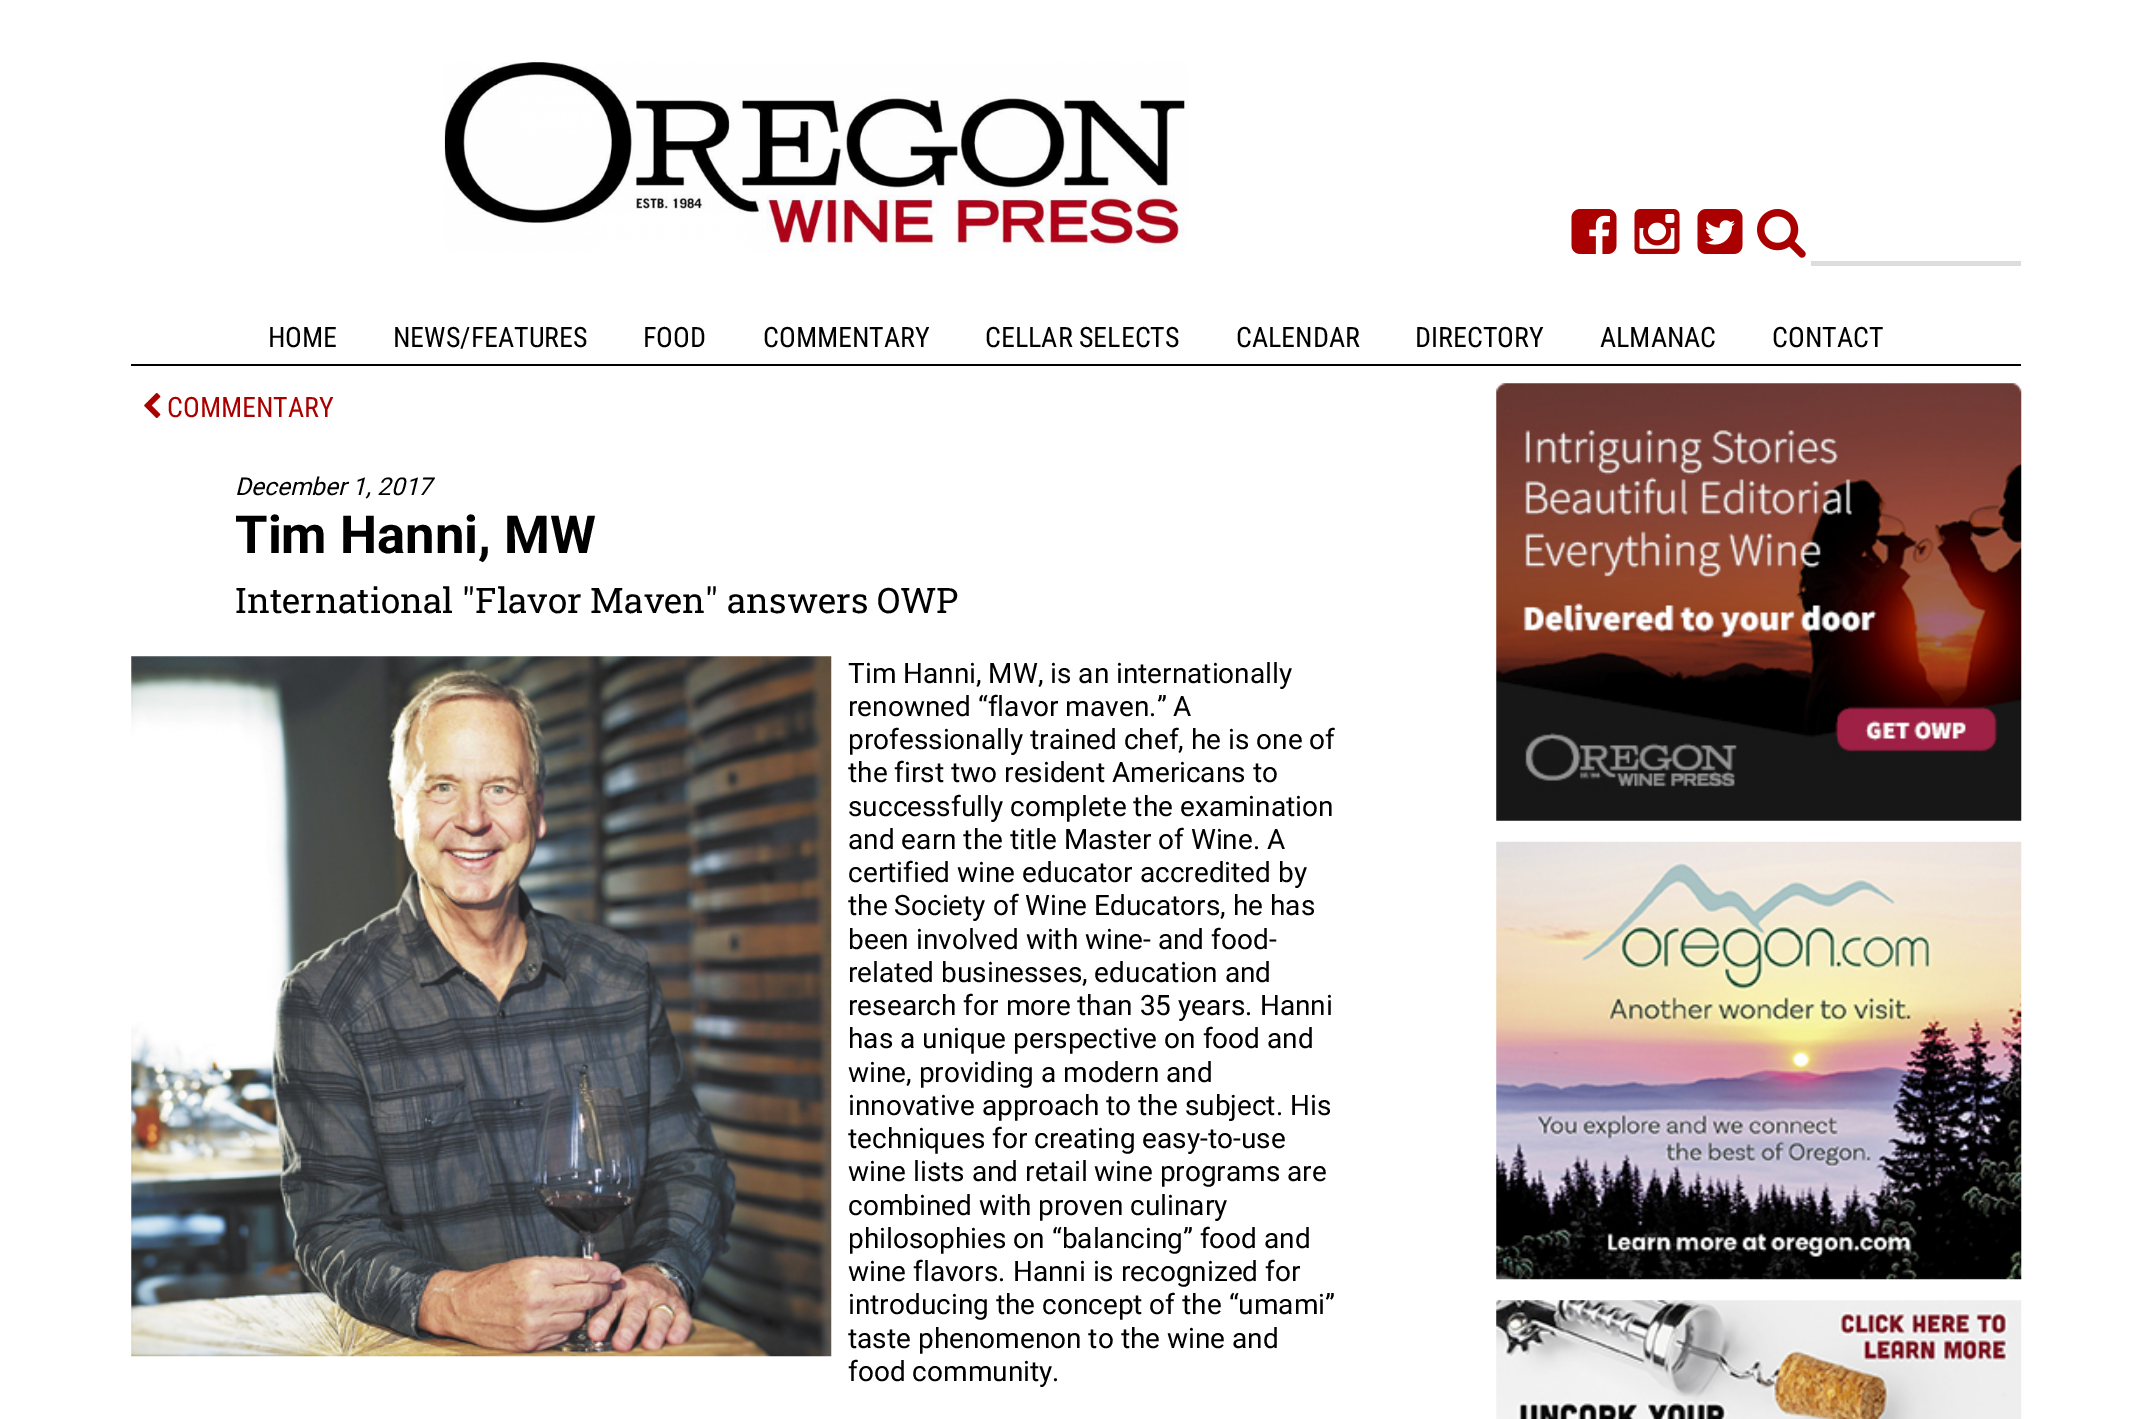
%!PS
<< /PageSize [2150 1419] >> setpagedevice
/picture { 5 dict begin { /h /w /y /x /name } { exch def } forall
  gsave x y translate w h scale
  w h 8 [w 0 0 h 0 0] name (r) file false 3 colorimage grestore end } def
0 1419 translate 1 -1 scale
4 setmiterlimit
1 setgray
0 0 2150 1419 rectfill
(img1.rgb) 444 62 745 190 picture
(img2.rgb) 1571 209 46 45 picture
(img3.rgb) 1634 209 46 45 picture
(img4.rgb) 1697 209 46 45 picture
(img5.rgb) 1757 209 49 49 picture
0.867 setgray
1811 261 210 5 rectfill
0 setgray
131 364 1890 2 rectfill
/RobotoCondensed-Regular [28 0 0 -28 0 0] selectfont
268 347 moveto (HOME) show
393 347 moveto (NEWS/FEATURES) show
643 347 moveto (FOOD) show
763 347 moveto (COMMENTARY) show
985 347 moveto (CELLAR SELECTS) show
1236 347 moveto (CALENDAR) show
1415 347 moveto (DIRECTORY) show
1600 347 moveto (ALMANAC) show
1772 347 moveto (CONTACT) show
(img6.rgb) 144 392 17 27 picture
0.667 0 0 setrgbcolor
167 417 moveto (COMMENTARY) show
/Roboto-Italic [24.5 0 0 -24.5 0 0] selectfont
0 setgray
235 495 moveto (December 1, 2017) show
/Roboto-Bold [52.5 0 0 -52.5 0 0] selectfont
235 553 moveto (Tim Hanni, MW) show
/RobotoSlab-Regular [35 0 0 -35 0 0] selectfont
235 613 moveto (International "Flavor Maven" answers OWP) show
(img7.rgb) 131 656 701 701 picture
/Roboto-Regular [28 0 0 -28 0 0] selectfont
848 683 moveto (Tim Hanni, MW, is an internationally) show
848 716 moveto (renowned “flavor maven.” A) show
848 749 moveto (professionally trained chef, he is one of) show
848 782 moveto (the first two resident Americans to) show
848 816 moveto (successfully complete the examination) show
848 849 moveto (and earn the title Master of Wine. A) show
848 882 moveto (certified wine educator accredited by) show
848 915 moveto (the Society of Wine Educators, he has) show
848 949 moveto (been involved with wine- and food-) show
848 982 moveto (related businesses, education and) show
848 1015 moveto (research for more than 35 years. Hanni) show
848 1048 moveto (has a unique perspective on food and) show
848 1082 moveto (wine, providing a modern and) show
848 1115 moveto (innovative approach to the subject. His) show
848 1148 moveto (techniques for creating easy-to-use) show
848 1181 moveto (wine lists and retail wine programs are) show
848 1215 moveto (combined with proven culinary) show
848 1248 moveto (philosophies on “balancing” food and) show
848 1281 moveto (wine flavors. Hanni is recognized for) show
848 1314 moveto (introducing the concept of the “umami”) show
848 1348 moveto (taste phenomenon to the wine and) show
848 1381 moveto (food community.) show
(img8.rgb) 1496 383 526 438 picture
(img9.rgb) 1496 841 526 439 picture
(img10.rgb) 1496 1300 526 119 picture
showpage
